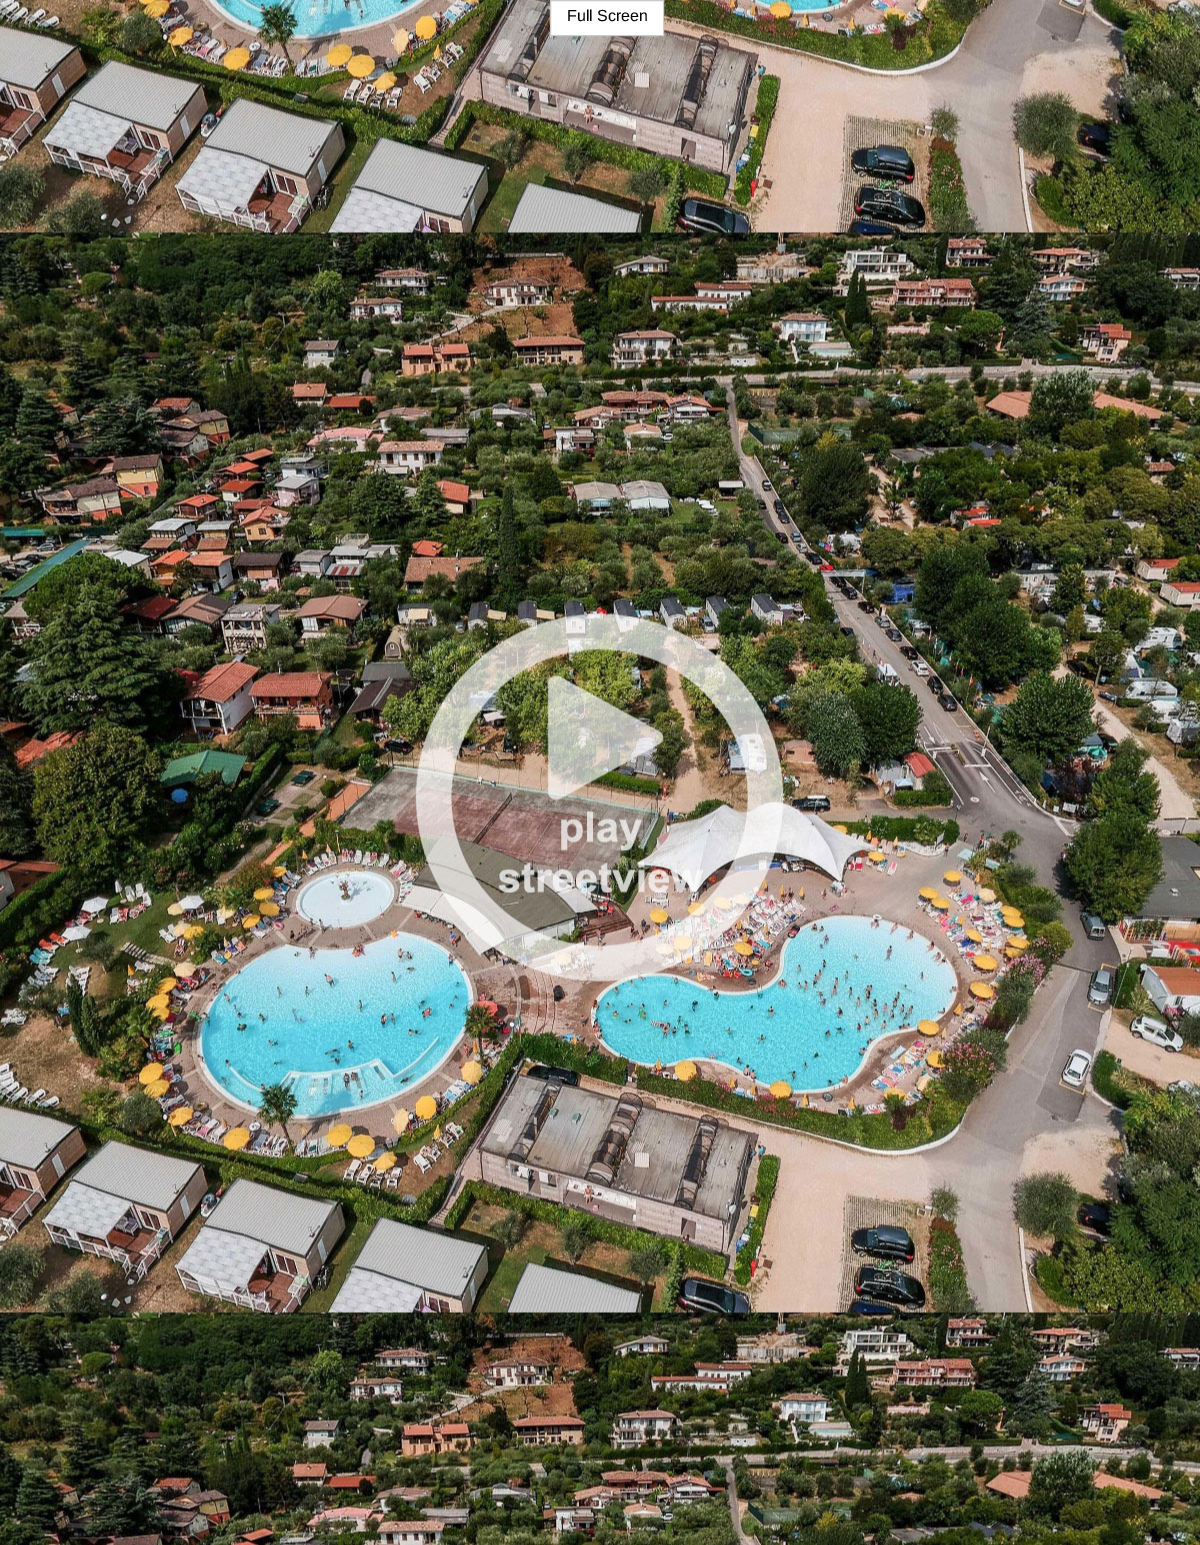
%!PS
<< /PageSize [1200 1545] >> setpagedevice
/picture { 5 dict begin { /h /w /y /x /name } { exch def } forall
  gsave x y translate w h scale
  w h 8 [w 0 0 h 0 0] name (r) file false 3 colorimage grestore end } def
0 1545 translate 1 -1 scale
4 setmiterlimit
1 setgray
0 0 1200 1545 rectfill
(img1.rgb) 0 0 1200 1545 picture
newpath 550.5 0.5 moveto 663.5 0.5 lineto 663.5 35.5 lineto 550.5 35.5 lineto closepath gsave fill grestore
0.796 setgray
stroke
/LiberationSans-Regular [16 0 0 -16 0 0] selectfont
0 setgray
567 21 moveto (Full Screen) show
showpage
